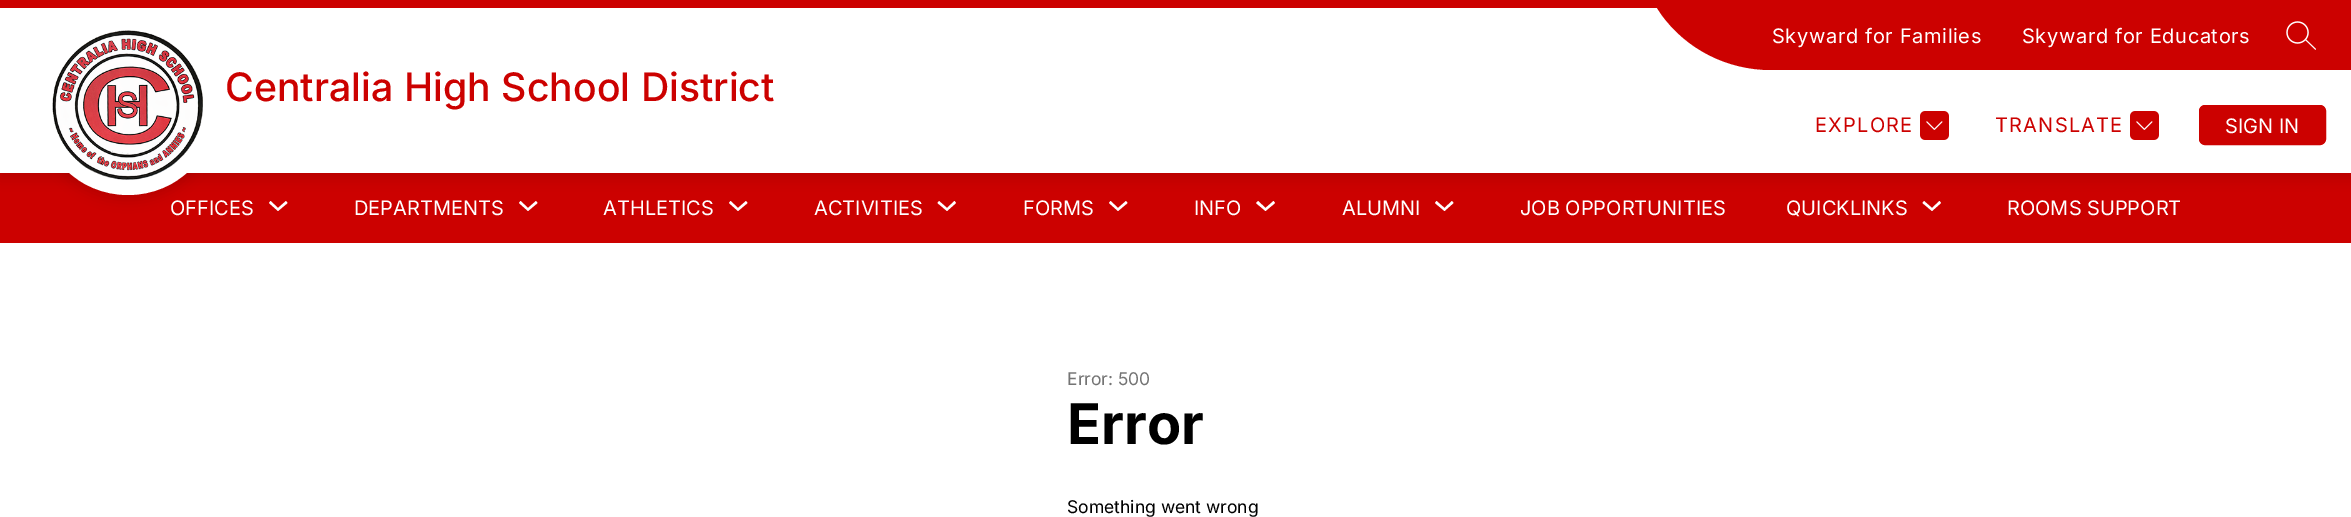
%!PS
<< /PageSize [2351 517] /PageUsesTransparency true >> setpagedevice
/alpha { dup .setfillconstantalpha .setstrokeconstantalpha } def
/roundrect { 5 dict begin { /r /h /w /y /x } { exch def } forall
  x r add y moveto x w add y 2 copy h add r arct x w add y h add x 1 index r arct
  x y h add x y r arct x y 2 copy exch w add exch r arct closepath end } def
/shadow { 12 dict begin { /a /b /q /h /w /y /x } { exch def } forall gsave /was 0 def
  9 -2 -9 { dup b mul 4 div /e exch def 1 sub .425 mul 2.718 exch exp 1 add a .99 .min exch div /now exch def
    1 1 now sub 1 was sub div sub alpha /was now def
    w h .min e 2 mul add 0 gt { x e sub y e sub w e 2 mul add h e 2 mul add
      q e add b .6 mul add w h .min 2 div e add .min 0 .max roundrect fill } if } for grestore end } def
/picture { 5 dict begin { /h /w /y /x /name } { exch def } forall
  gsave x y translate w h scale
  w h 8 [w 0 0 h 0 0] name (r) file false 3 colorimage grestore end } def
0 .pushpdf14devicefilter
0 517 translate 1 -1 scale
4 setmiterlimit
1 setgray
0 0 2351 517 rectfill
0.8 0.004 0 setrgbcolor
0 173 2351 70 rectfill
0 setgray
0 5 2351 173 0 6 0.1 shadow
38 20 180 180 90 6 0.1 shadow
1 setgray
newpath 128 105 90 0 360 arc closepath fill
0 8 2351 165 rectfill
0.8 0.004 0 setrgbcolor
0 0 1657 8 rectfill
(img1.rgb) 52 30 151 150 picture
/Inter-Medium [39.25 0 0 -39.25 0 0] selectfont
225 101 moveto (Centralia High School District) show
1774 0 577 70 rectfill
newpath 1771 70 moveto 1774 70 lineto 1774 0 lineto 1654 0 lineto 1653 0 1652 1 1653 2 curveto 1661 14 lineto 1686 49 1727 70 1771 70 curveto closepath fill
/Inter-Regular [20 0 0 -20 0 0] selectfont
1 setgray
1772 43 moveto 0.6 0 (Skyward for Families) ashow
2022 43 moveto 0.6 0 (Skyward for Educators) ashow
(img2.rgb) 2286 21 30 29 picture
0.8 0.004 0 setrgbcolor
1815 132 moveto 1.25 0 (EXPLORE) ashow
(img3.rgb) 1920 111 29 29 picture
1995 132 moveto 1.25 0 (TRANSLATE) ashow
(img3.rgb) 2130 111 29 29 picture
2199.5 105.5 126 39 5.5 roundrect gsave fill grestore
stroke
1 setgray
2225 133 moveto (SIGN IN) show
170 215 moveto (OFFICES) show
newpath 286 201 moveto 278 208 lineto 270.5 201 lineto 269 203 lineto 278 211 lineto 287.5 203 lineto closepath eofill
354 215 moveto (DEPARTMENTS) show
newpath 536 201 moveto 528 208 lineto 520.5 201 lineto 519 203 lineto 528 211 lineto 537.5 203 lineto closepath eofill
603 215 moveto (ATHLETICS) show
newpath 746 201 moveto 738 208 lineto 730.5 201 lineto 729 203 lineto 738 211 lineto 747.5 203 lineto closepath eofill
814 215 moveto (ACTIVITIES) show
newpath 954.5 201 moveto 947 208 lineto 939 201 lineto 937.5 203 lineto 947 211 lineto 956 203 lineto closepath eofill
1023 215 moveto (FORMS) show
newpath 1126 201 moveto 1118 208 lineto 1110.5 201 lineto 1109 203 lineto 1118 211 lineto 1127.5 203 lineto closepath eofill
1194 215 moveto (INFO) show
newpath 1273.5 201 moveto 1265.5 208 lineto 1258 201 lineto 1256 203 lineto 1265.5 211 lineto 1275 203 lineto closepath eofill
1342 215 moveto (ALUMNI) show
newpath 1452 201 moveto 1444.5 208 lineto 1436.5 201 lineto 1435 203 lineto 1444.5 211 lineto 1453.5 203 lineto closepath eofill
1520 215 moveto (JOB OPPORTUNITIES) show
1786 215 moveto (QUICKLINKS) show
newpath 1939.5 201 moveto 1932 208 lineto 1924 201 lineto 1922.5 203 lineto 1932 211 lineto 1941 203 lineto closepath eofill
2007 215 moveto (ROOMS SUPPORT) show
/Inter-Regular [17.5 0 0 -17.5 0 0] selectfont
0.455 setgray
1067 385 moveto (Error: 500) show
/Inter-Bold [56 0 0 -56 0 0] selectfont
0 setgray
1067 444 moveto (Error) show
/Inter-Regular [17.5 0 0 -17.5 0 0] selectfont
1067 513 moveto (Something went wrong) show
.poppdf14devicefilter showpage
